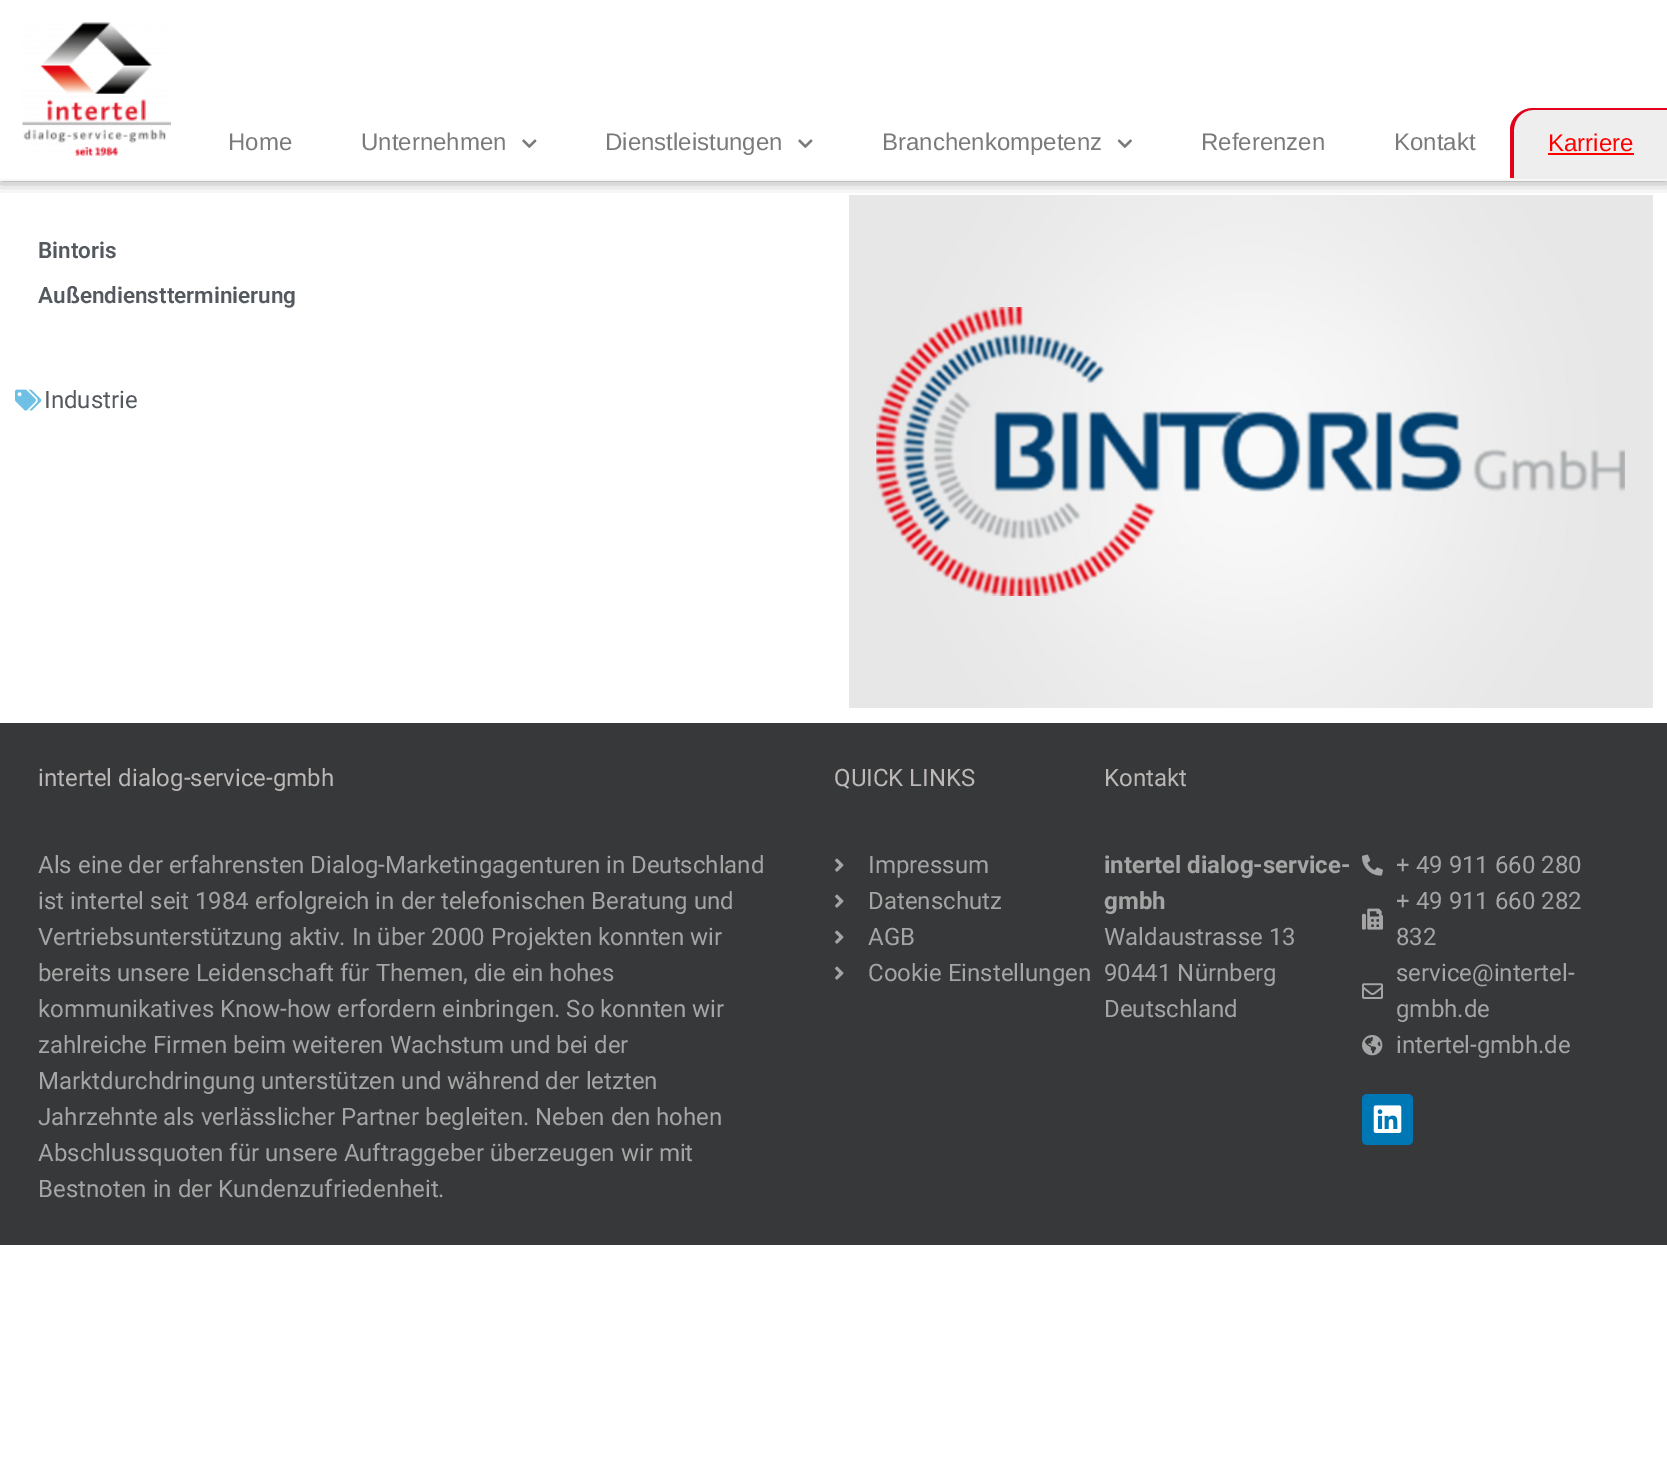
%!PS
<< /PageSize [1667 1475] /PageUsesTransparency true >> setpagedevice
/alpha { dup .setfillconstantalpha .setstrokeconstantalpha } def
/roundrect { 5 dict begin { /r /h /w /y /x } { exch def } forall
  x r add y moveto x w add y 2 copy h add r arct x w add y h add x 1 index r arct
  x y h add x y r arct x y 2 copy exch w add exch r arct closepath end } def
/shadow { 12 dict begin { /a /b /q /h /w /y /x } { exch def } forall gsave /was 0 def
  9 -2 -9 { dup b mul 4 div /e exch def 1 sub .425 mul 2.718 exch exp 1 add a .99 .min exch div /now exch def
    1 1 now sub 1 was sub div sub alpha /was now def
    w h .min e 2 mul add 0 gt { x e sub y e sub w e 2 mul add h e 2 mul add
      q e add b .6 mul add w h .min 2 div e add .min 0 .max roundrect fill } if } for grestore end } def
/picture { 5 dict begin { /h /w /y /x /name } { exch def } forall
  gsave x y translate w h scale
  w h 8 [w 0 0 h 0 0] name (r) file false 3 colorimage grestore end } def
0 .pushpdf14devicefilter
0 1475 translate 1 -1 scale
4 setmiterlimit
1 setgray
0 0 1667 1475 rectfill
gsave
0 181 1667 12 rectclip
0 setgray
0 0 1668 180 0 7.5 0.5 shadow
grestore
0.965 setgray
0 179 1667 2 rectfill
(img1.rgb) 22 22 149 134 picture
/LiberationSans-Regular [24 0 0 -24 0 0] selectfont
0.478 setgray
228 150 moveto (Home) show
361 150 moveto (Unternehmen) show
(img2.rgb) 522 139 15 9 picture
605 150 moveto (Dienstleistungen) show
(img2.rgb) 798 139 15 9 picture
882 150 moveto (Branchenkompetenz) show
(img3.rgb) 1117 139 15 9 picture
1201 150 moveto (Referenzen) show
1394 150 moveto (Kontakt) show
0.933 setgray
newpath 1534 108 moveto 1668 108 lineto 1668 179 lineto 1511 179 lineto 1511 131 lineto 1511 118.5 1521.5 108 1534 108 curveto closepath fill
0.886 0 0.102 setrgbcolor
newpath 1533 108 moveto 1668 108 lineto 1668 178 lineto 1510 178 lineto 1510 130 lineto 1510 118 1521 108 1533 108 curveto closepath 1533 110 moveto 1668 110 lineto 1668 178 lineto 1514 178 lineto 1514 130 lineto 1514 119 1522 110 1533 110 curveto closepath eofill
1 0 0 setrgbcolor
1548 151 moveto (Karriere) show
1548 153 86 2 rectfill
/Roboto-SemiBold [22.5 0 0 -22.5 0 0] selectfont
0.329 0.349 0.373 setrgbcolor
38 258 moveto (Bintoris) show
38 303 moveto (Außendienstterminierung) show
(img4.rgb) 15 389 27 22 picture
/Roboto-Regular [24 0 0 -24 0 0] selectfont
44 408 moveto (Industrie) show
(img5.rgb) 849 195 804 513 picture
0.212 0.22 0.224 setrgbcolor
0 723 1667 522 rectfill
0.737 0.722 0.722 setrgbcolor
38 786 moveto (intertel dialog-service-gmbh) show
0.647 setgray
38 873 moveto (Als eine der erfahrensten Dialog-Marketingagenturen in Deutschland) show
38 909 moveto (ist intertel seit 1984 erfolgreich in der telefonischen Beratung und) show
38 945 moveto (Vertriebsunterstützung aktiv. In über 2000 Projekten konnten wir) show
38 981 moveto (bereits unsere Leidenschaft für Themen, die ein hohes) show
38 1017 moveto (kommunikatives Know-how erfordern einbringen. So konnten wir) show
38 1053 moveto (zahlreiche Firmen beim weiteren Wachstum und bei der) show
38 1089 moveto (Marktdurchdringung unterstützen und während der letzten) show
38 1125 moveto (Jahrzehnte als verlässlicher Partner begleiten. Neben den hohen) show
38 1161 moveto (Abschlussquoten für unsere Auftraggeber überzeugen wir mit) show
38 1197 moveto (Bestnoten in der Kundenzufriedenheit.) show
0.737 0.722 0.722 setrgbcolor
834 786 moveto (QUICK LINKS) show
(img6.rgb) 835 858 9 14 picture
0.647 setgray
868 873 moveto (Impressum) show
(img6.rgb) 835 894 9 14 picture
868 909 moveto (Datenschutz) show
(img6.rgb) 835 930 9 14 picture
868 945 moveto (AGB) show
(img6.rgb) 835 966 9 14 picture
868 981 moveto (Cookie Einstellungen) show
0.737 0.722 0.722 setrgbcolor
1104 786 moveto (Kontakt) show
/Roboto-Bold [24 0 0 -24 0 0] selectfont
0.647 setgray
1104 873 moveto (intertel dialog-service-) show
1104 909 moveto (gmbh) show
/Roboto-Regular [24 0 0 -24 0 0] selectfont
1104 945 moveto (Waldaustrasse 13) show
1104 981 moveto (90441 Nürnberg) show
1104 1017 moveto (Deutschland) show
(img7.rgb) 1362 854 21 22 picture
1396 873 moveto (+ 49 911 660 280) show
(img8.rgb) 1362 908 21 22 picture
1396 909 moveto (+ 49 911 660 282) show
1396 945 moveto (832) show
(img9.rgb) 1362 983 21 16 picture
1396 981 moveto (service@intertel-) show
1396 1017 moveto (gmbh.de) show
(img10.rgb) 1362 1035 21 21 picture
1396 1053 moveto (intertel-gmbh.de) show
0 0.467 0.71 setrgbcolor
1362 1094 51 51 5 roundrect fill
(img11.rgb) 1373 1105 29 28 picture
.poppdf14devicefilter showpage
